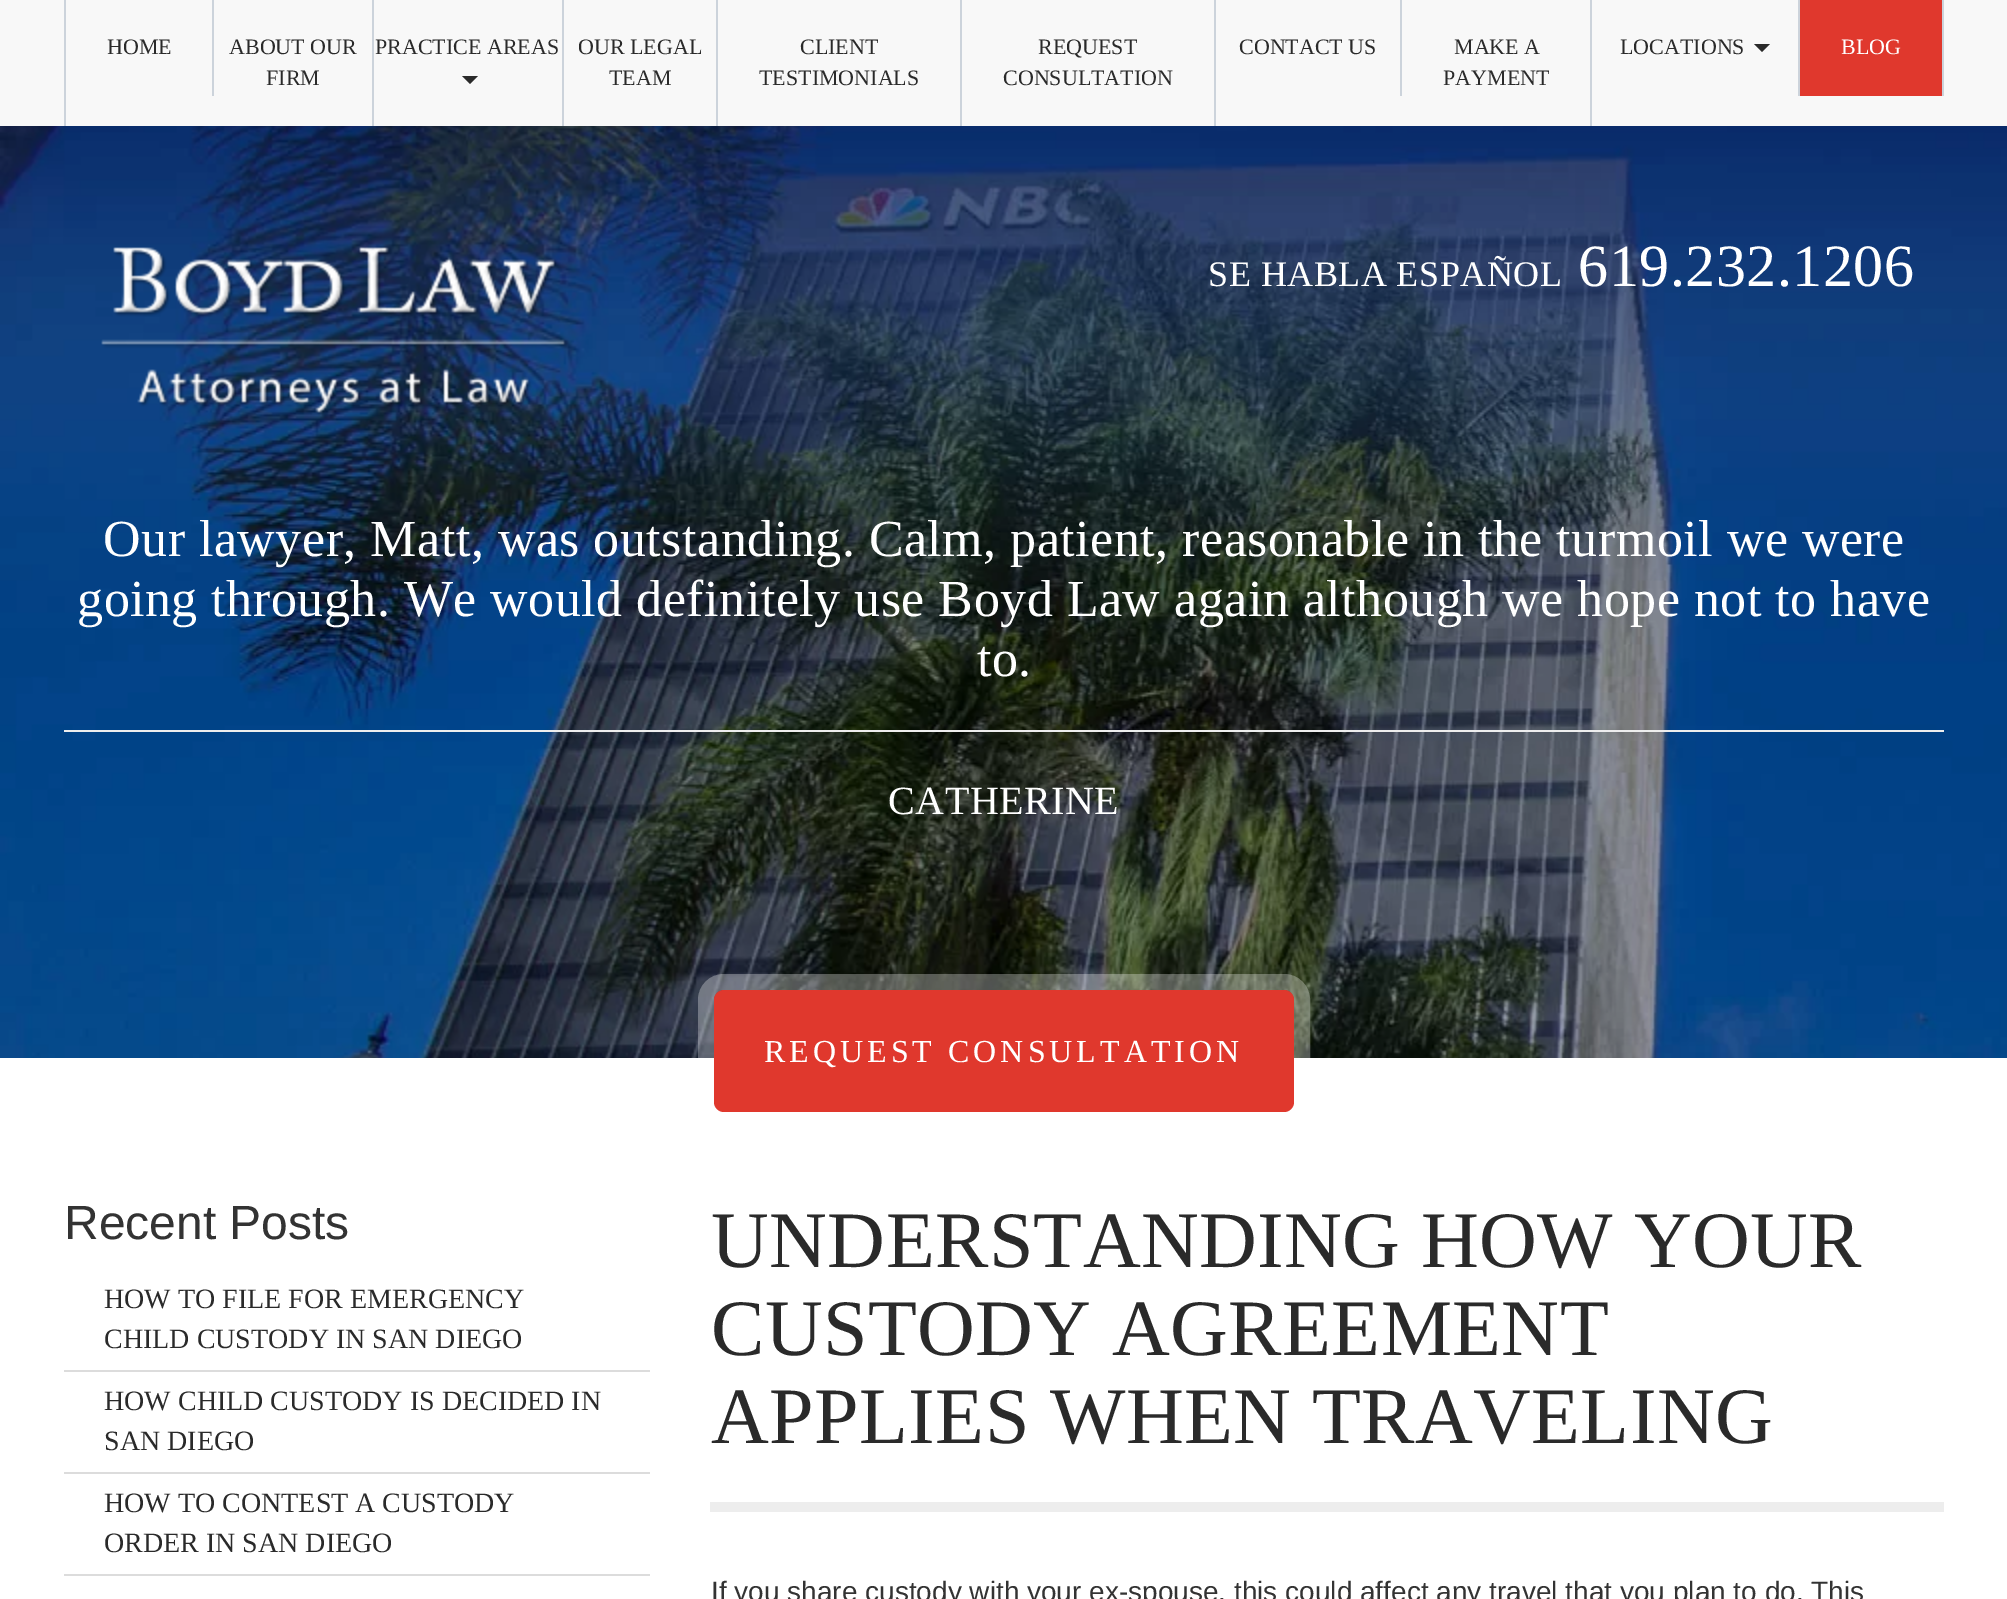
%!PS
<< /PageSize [2007 1599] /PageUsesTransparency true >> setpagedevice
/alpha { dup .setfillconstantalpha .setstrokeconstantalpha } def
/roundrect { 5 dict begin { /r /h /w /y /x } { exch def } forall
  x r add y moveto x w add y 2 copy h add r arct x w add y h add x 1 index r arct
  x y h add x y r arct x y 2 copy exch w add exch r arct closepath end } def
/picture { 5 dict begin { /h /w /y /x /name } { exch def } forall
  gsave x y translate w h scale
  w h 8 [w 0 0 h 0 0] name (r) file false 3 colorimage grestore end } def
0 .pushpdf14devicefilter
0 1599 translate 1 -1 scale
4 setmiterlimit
1 setgray
0 0 2007 1599 rectfill
0.973 setgray
0 0 2007 126 rectfill
0.8 0.827 0.859 setrgbcolor
64 0 2 126 rectfill
212 0 2 96 rectfill
/LiberationSerif-Regular [22 0 0 -22 0 0] selectfont
0.165 setgray
107 54 moveto (HOME) show
0.8 0.827 0.859 setrgbcolor
372 0 2 126 rectfill
0.165 setgray
229 54 moveto (ABOUT OUR) show
266 85 moveto (FIRM) show
0.8 0.827 0.859 setrgbcolor
562 0 2 126 rectfill
0.165 setgray
375 54 moveto (PRACTICE AREAS) show
newpath 462 76 moveto 478 76 lineto 470 84 lineto closepath fill
0.8 0.827 0.859 setrgbcolor
716 0 2 126 rectfill
0.165 setgray
578 54 moveto (OUR LEGAL) show
609 85 moveto (TEAM) show
0.8 0.827 0.859 setrgbcolor
960 0 2 126 rectfill
0.165 setgray
800 54 moveto (CLIENT) show
759 85 moveto (TESTIMONIALS) show
0.8 0.827 0.859 setrgbcolor
1214 0 2 126 rectfill
0.165 setgray
1038 54 moveto (REQUEST) show
1003 85 moveto (CONSULTATION) show
0.8 0.827 0.859 setrgbcolor
1400 0 2 96 rectfill
0.165 setgray
1239 54 moveto (CONTACT US) show
0.8 0.827 0.859 setrgbcolor
1590 0 2 126 rectfill
0.165 setgray
1454 54 moveto (MAKE A) show
1443 85 moveto (PAYMENT) show
0.8 0.827 0.859 setrgbcolor
1798 0 2 96 rectfill
0.165 setgray
1620 54 moveto (LOCATIONS) show
newpath 1754 44 moveto 1770 44 lineto 1762 52 lineto closepath fill
0.878 0.22 0.176 setrgbcolor
1800 0 142 96 rectfill
0.8 0.827 0.859 setrgbcolor
1942 0 2 96 rectfill
1 setgray
1841 54 moveto (BLOG) show
(img1.rgb) 0 126 2007 932 picture
(img2.rgb) 101 247 466 169 picture
/LiberationSerif-Regular [36 0 0 -36 0 0] selectfont
1208 286 moveto 0.5 0 (SE HABLA ESPAÑOL) ashow
/LiberationSerif-Regular [60 0 0 -60 0 0] selectfont
1578 286 moveto 0.5 0 (619.232.1206) ashow
/LiberationSerif-Regular [52 0 0 -52 0 0] selectfont
103 556 moveto 0.5 0 (Our lawyer, Matt, was outstanding. Calm, patient, reasonable in the turmoil we were) ashow
77 616 moveto 0.5 0 (going through. We would definitely use Boyd Law again although we hope not to have) ashow
977 676 moveto 0.5 0 (to.) ashow
0.933 setgray
64 730 1880 2 rectfill
/LiberationSerif-Regular [40 0 0 -40 0 0] selectfont
1 setgray
888 814 moveto 0.5 0 (CATHERINE) ashow
0.3 alpha
16 setlinewidth
706 982 596 138 18 roundrect stroke
1 alpha
0.878 0.22 0.176 setrgbcolor
714 990 580 122 10 roundrect fill
/LiberationSerif-Regular [32 0 0 -32 0 0] selectfont
1 setgray
764 1062 moveto 4 0 (REQUEST CONSULTATION) ashow
/LiberationSans-Regular [48 0 0 -48 0 0] selectfont
0.2 setgray
64 1239 moveto (Recent Posts) show
0.863 setgray
64 1370 586 2 rectfill
/LiberationSerif-Regular [28 0 0 -28 0 0] selectfont
0.165 setgray
104 1308 moveto (HOW TO FILE FOR EMERGENCY) show
104 1348 moveto (CHILD CUSTODY IN SAN DIEGO) show
0.863 setgray
64 1472 586 2 rectfill
0.165 setgray
104 1410 moveto (HOW CHILD CUSTODY IS DECIDED IN) show
104 1450 moveto (SAN DIEGO) show
0.863 setgray
64 1574 586 2 rectfill
0.165 setgray
104 1512 moveto (HOW TO CONTEST A CUSTODY) show
104 1552 moveto (ORDER IN SAN DIEGO) show
0.929 setgray
710 1502 1234 10 rectfill
/LiberationSerif-Regular [80 0 0 -80 0 0] selectfont
0.165 setgray
711 1267 moveto 0.4 0 (UNDERSTANDING HOW YOUR) ashow
711 1355 moveto 0.4 0 (CUSTODY AGREEMENT) ashow
711 1443 moveto 0.4 0 (APPLIES WHEN TRAVELING) ashow
/LiberationSans-Regular [28 0 0 -28 0 0] selectfont
0.2 setgray
711 1601 moveto (If you share custody with your ex-spouse, this could affect any travel that you plan to do. This) show
.poppdf14devicefilter showpage
